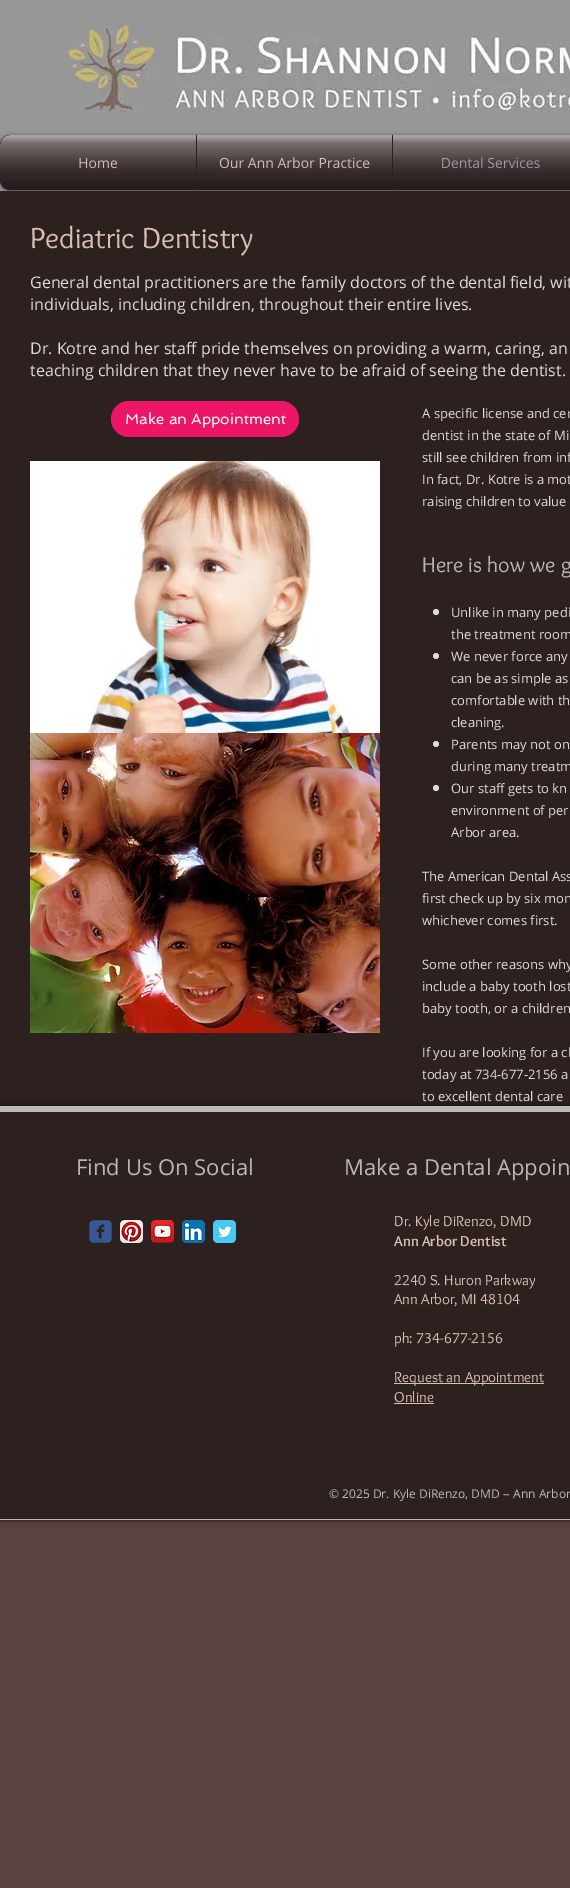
%!PS
<< /PageSize [570 1888] /PageUsesTransparency true >> setpagedevice
/alpha { dup .setfillconstantalpha .setstrokeconstantalpha } def
/roundrect { 5 dict begin { /r /h /w /y /x } { exch def } forall
  x r add y moveto x w add y 2 copy h add r arct x w add y h add x 1 index r arct
  x y h add x y r arct x y 2 copy exch w add exch r arct closepath end } def
/shadow { 12 dict begin { /a /b /q /h /w /y /x } { exch def } forall gsave /was 0 def
  9 -2 -9 { dup b mul 4 div /e exch def 1 sub .425 mul 2.718 exch exp 1 add a .99 .min exch div /now exch def
    1 1 now sub 1 was sub div sub alpha /was now def
    w h .min e 2 mul add 0 gt { x e sub y e sub w e 2 mul add h e 2 mul add
      q e add b .6 mul add w h .min 2 div e add .min 0 .max roundrect fill } if } for grestore end } def
/picture { 5 dict begin { /h /w /y /x /name } { exch def } forall
  gsave x y translate w h scale
  w h 8 [w 0 0 h 0 0] name (r) file false 3 colorimage grestore end } def
0 .pushpdf14devicefilter
0 1888 translate 1 -1 scale
4 setmiterlimit
0.357 0.259 0.251 setrgbcolor
0 0 570 1888 rectfill
0.588 setgray
0 0 570 191 rectfill
(img1.rgb) 62 23 508 91 picture
0 setgray
0 136 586 55 10 2 0.6 shadow
(img2.rgb) 0 135 10 10 picture
(img3.rgb) 0 180 10 10 picture
0.176 0.129 0.125 setrgbcolor
newpath 10 135 moveto 196 135 lineto 196 190 lineto 10 190 lineto 4.5 190 0 185.5 0 180 curveto 0 145 lineto 0 139.5 4.5 135 10 135 curveto closepath fill
/OpenSans-Regular [14 0 0 -14 0 0] selectfont
0.859 0.741 0.729 setrgbcolor
78 168 moveto (Home) show
(img4.rgb) 0 135 196 46 picture
(img5.rgb) 0 158 196 32 picture
0.176 0.129 0.125 setrgbcolor
196 135 374 55 rectfill
0.859 0.741 0.729 setrgbcolor
219 168 moveto (Our Ann Arbor Practice) show
(img6.rgb) 197 135 195 46 picture
(img7.rgb) 197 158 195 32 picture
0.588 setgray
441 168 moveto (Dental Services) show
(img8.rgb) 393 135 177 46 picture
(img9.rgb) 393 158 177 32 picture
0.176 0.129 0.125 setrgbcolor
0 191 570 915 rectfill
/Overlock-Regular [30 0 0 -30 0 0] selectfont
0.859 0.741 0.729 setrgbcolor
30 248 moveto (Pediatric Dentistry) show
/OpenSans-Regular [16 0 0 -16 0 0] selectfont
0.863 setgray
30 288 moveto (General dental practitioners are the family doctors of the dental field, wit) show
30 310 moveto (individuals, including children, throughout their entire lives.) show
30 354 moveto (Dr. Kotre and her staff pride themselves on providing a warm, caring, an) show
30 376 moveto (teaching children that they never have to be afraid of seeing the dentist.) show
0.929 0.082 0.4 setrgbcolor
111 401 188 36 18 roundrect fill
/Spinnaker-Regular [15 0 0 -15 0 0] selectfont
1 setgray
125 424 moveto (Make an Appointment) show
/OpenSans-Regular [13 0 0 -13 0 0] selectfont
0.863 setgray
422 418 moveto (A specific license and cer) show
422 440 moveto (dentist in the state of Mi) show
422 462 moveto (still see children from inf) show
422 484 moveto (In fact, Dr. Kotre is a mot) show
422 506 moveto (raising children to value) show
/Overlock-Regular [22 0 0 -22 0 0] selectfont
0.725 setgray
422 572 moveto (Here is how we g) show
0.863 setgray
newpath 436 612 3 0 360 arc closepath fill
/OpenSans-Regular [13 0 0 -13 0 0] selectfont
451 617 moveto (Unlike in many pedi) show
451 639 moveto (the treatment room) show
newpath 436 656 3 0 360 arc closepath fill
451 661 moveto (We never force any) show
451 683 moveto (can be as simple as) show
451 705 moveto (comfortable with th) show
451 727 moveto (cleaning.) show
newpath 436 744 3 0 360 arc closepath fill
451 749 moveto (Parents may not on) show
451 771 moveto (during many treatm) show
newpath 436 788 3 0 360 arc closepath fill
451 793 moveto (Our staff gets to kn) show
451 815 moveto (environment of per) show
451 837 moveto (Arbor area.) show
422 881 moveto (The American Dental Ass) show
422 903 moveto (first check up by six mon) show
422 925 moveto (whichever comes first.) show
422 969 moveto (Some other reasons why) show
422 991 moveto (include a baby tooth lost) show
422 1013 moveto (baby tooth, or a children) show
422 1057 moveto (If you are looking for a ch) show
422 1079 moveto (today at 734-677-2156 a) show
422 1101 moveto (to excellent dental care) show
(img10.rgb) 30 461 350 272 picture
(img11.rgb) 30 733 350 300 picture
0 setgray
0 1106 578 414 0 2.5 0.7 shadow
0.176 0.129 0.125 setrgbcolor
0 1112 570 407 rectfill
0.725 setgray
0 1106 570 6 rectfill
0 1519 570 1 rectfill
/OpenSans-Regular [22 0 0 -22 0 0] selectfont
76 1175 moveto (Find Us On Social) show
344 1175 moveto (Make a Dental Appoin) show
(img12.rgb) 89 1220 23 23 picture
(img13.rgb) 120 1220 23 23 picture
(img14.rgb) 151 1220 23 23 picture
(img15.rgb) 182 1220 23 23 picture
(img16.rgb) 213 1220 23 23 picture
/Overlock-Regular [15 0 0 -15 0 0] selectfont
0.859 0.741 0.729 setrgbcolor
394 1226 moveto (Dr. Kyle DiRenzo, DMD) show
/Overlock-Bold [15 0 0 -15 0 0] selectfont
394 1246 moveto (Ann Arbor Dentist) show
/Overlock-Regular [15 0 0 -15 0 0] selectfont
394 1285 moveto (2240 S. Huron Parkway) show
394 1304 moveto (Ann Arbor, MI 48104) show
394 1343 moveto (ph: 734-677-2156) show
394 1383 150 1 rectfill
394 1382 moveto (Request an Appointment) show
394 1402 moveto (Online) show
394 1403 40 1 rectfill
/OpenSans-Regular [12 0 0 -12 0 0] selectfont
0.725 setgray
329 1498 moveto (© 2025 Dr. Kyle DiRenzo, DMD -- Ann Arbor) show
.poppdf14devicefilter showpage
